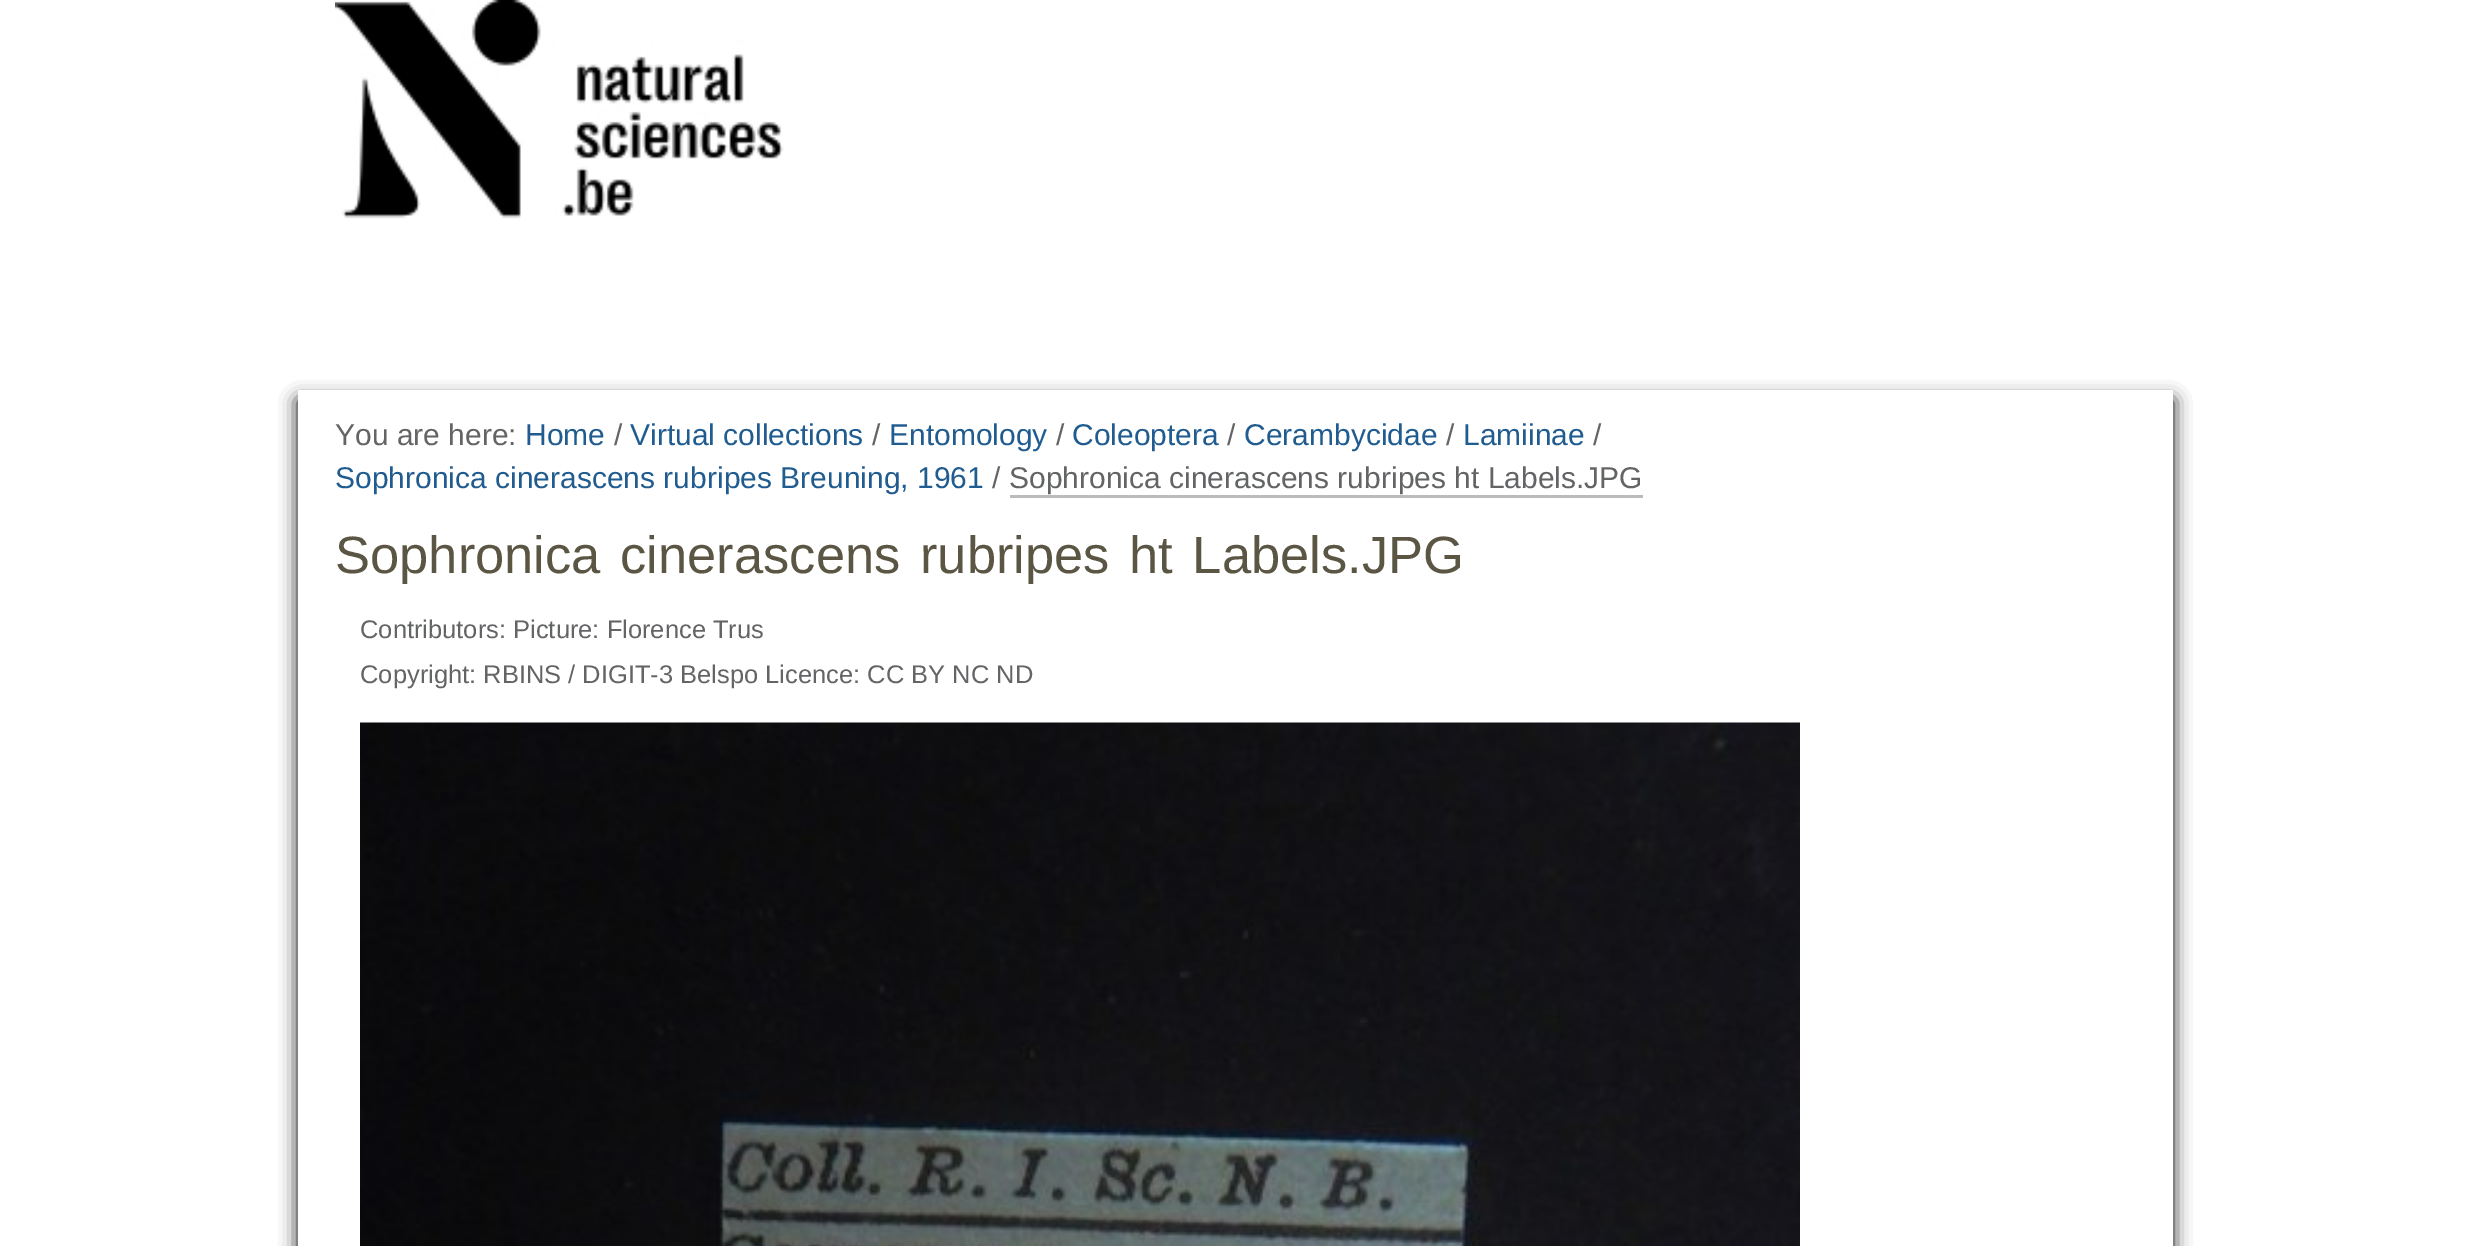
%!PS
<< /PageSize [2469 1246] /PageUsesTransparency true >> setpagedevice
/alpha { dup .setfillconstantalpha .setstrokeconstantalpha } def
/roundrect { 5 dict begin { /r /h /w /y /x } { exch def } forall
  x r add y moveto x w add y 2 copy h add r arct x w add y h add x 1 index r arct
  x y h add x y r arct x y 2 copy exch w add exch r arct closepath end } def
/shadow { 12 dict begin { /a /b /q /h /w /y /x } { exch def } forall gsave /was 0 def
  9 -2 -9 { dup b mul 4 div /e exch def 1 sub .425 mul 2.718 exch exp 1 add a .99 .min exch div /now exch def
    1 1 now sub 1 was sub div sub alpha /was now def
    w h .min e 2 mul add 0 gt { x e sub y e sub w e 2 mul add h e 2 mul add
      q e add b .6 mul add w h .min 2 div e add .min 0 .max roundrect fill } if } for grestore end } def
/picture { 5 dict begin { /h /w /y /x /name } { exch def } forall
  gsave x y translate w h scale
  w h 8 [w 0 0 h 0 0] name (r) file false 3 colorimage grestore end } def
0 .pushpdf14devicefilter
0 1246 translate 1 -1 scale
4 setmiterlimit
1 setgray
0 0 2469 1246 rectfill
(img1.rgb) 335 0 449 219 picture
0 setgray
298 400 1875 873 0 9 1 shadow
1 setgray
298 390 1875 856 rectfill
/LiberationSans-Regular [30 0 0 -30 0 0] selectfont
0.388 0.392 0.4 setrgbcolor
335 445 moveto (You are here:) show
0.125 0.361 0.565 setrgbcolor
525 445 moveto (Home) show
0.388 0.392 0.4 setrgbcolor
614 445 moveto (/) show
0.125 0.361 0.565 setrgbcolor
630 445 moveto (Virtual collections) show
0.388 0.392 0.4 setrgbcolor
872 445 moveto (/) show
0.125 0.361 0.565 setrgbcolor
889 445 moveto (Entomology) show
0.388 0.392 0.4 setrgbcolor
1056 445 moveto (/) show
0.125 0.361 0.565 setrgbcolor
1072 445 moveto (Coleoptera) show
0.388 0.392 0.4 setrgbcolor
1227 445 moveto (/) show
0.125 0.361 0.565 setrgbcolor
1244 445 moveto (Cerambycidae) show
0.388 0.392 0.4 setrgbcolor
1446 445 moveto (/) show
0.125 0.361 0.565 setrgbcolor
1463 445 moveto (Lamiinae) show
0.388 0.392 0.4 setrgbcolor
1593 445 moveto (/) show
0.125 0.361 0.565 setrgbcolor
335 488 moveto (Sophronica cinerascens rubripes Breuning, 1961) show
0.388 0.392 0.4 setrgbcolor
992 488 moveto (/) show
1009 488 moveto (Sophronica cinerascens rubripes ht Labels.JPG) show
0.733 setgray
1010 495 633 3 rectfill
/LiberationSans-Regular [52.5 0 0 -52.5 0 0] selectfont
0.357 0.337 0.267 setrgbcolor
335 573 moveto 5 0 32 (Sophronica cinerascens rubripes ht Labels.JPG) widthshow
/LiberationSans-Regular [25.5 0 0 -25.5 0 0] selectfont
0.388 0.392 0.4 setrgbcolor
360 638 moveto (Contributors: Picture: Florence Trus) show
360 683 moveto (Copyright: RBINS / DIGIT-3 Belspo Licence: CC BY NC ND) show
(img2.rgb) 360 722 1440 524 picture
.poppdf14devicefilter showpage
